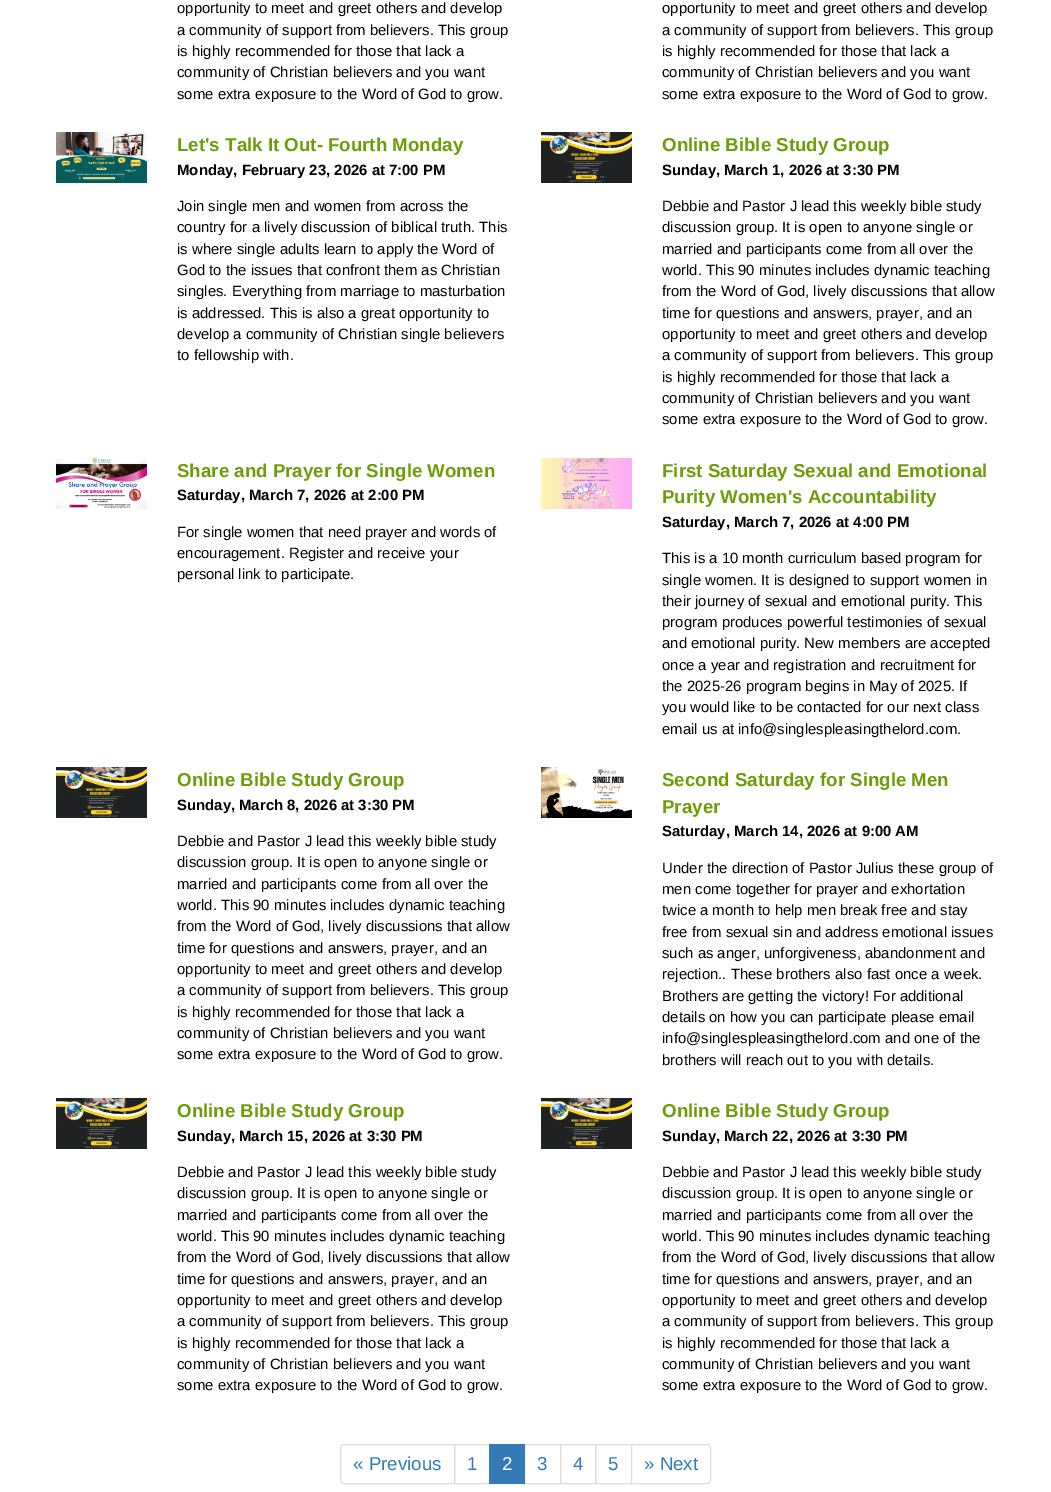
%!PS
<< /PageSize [1051 1492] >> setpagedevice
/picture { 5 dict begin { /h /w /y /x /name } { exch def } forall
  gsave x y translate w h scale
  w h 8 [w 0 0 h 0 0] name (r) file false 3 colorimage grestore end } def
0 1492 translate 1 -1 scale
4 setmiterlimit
1 setgray
0 0 1051 1492 rectfill
/LiberationSans-Regular [14.9 0 0 -14.9 0 0] selectfont
0 setgray
177 13 moveto (opportunity to meet and greet others and develop) show
177 35 moveto (a community of support from believers. This group) show
177 56 moveto (is highly recommended for those that lack a) show
177 77 moveto (community of Christian believers and you want) show
177 99 moveto (some extra exposure to the Word of God to grow.) show
662 13 moveto (opportunity to meet and greet others and develop) show
662 35 moveto (a community of support from believers. This group) show
662 56 moveto (is highly recommended for those that lack a) show
662 77 moveto (community of Christian believers and you want) show
662 99 moveto (some extra exposure to the Word of God to grow.) show
(img1.rgb) 56 132 91 51 picture
/LiberationSans-Bold [18.7 0 0 -18.7 0 0] selectfont
0.427 0.612 0.024 setrgbcolor
177 151 moveto (Let's Talk It Out- Fourth Monday) show
/LiberationSans-Bold [14.9 0 0 -14.9 0 0] selectfont
0 setgray
177 175 moveto (Monday, February 23, 2026 at 7:00 PM) show
/LiberationSans-Regular [14.9 0 0 -14.9 0 0] selectfont
177 211 moveto (Join single men and women from across the) show
177 232 moveto (country for a lively discussion of biblical truth. This) show
177 254 moveto (is where single adults learn to apply the Word of) show
177 275 moveto (God to the issues that confront them as Christian) show
177 296 moveto (singles. Everything from marriage to masturbation) show
177 318 moveto (is addressed. This is also a great opportunity to) show
177 339 moveto (develop a community of Christian single believers) show
177 360 moveto (to fellowship with.) show
(img2.rgb) 541 132 91 51 picture
/LiberationSans-Bold [18.7 0 0 -18.7 0 0] selectfont
0.427 0.612 0.024 setrgbcolor
662 151 moveto (Online Bible Study Group) show
/LiberationSans-Bold [14.9 0 0 -14.9 0 0] selectfont
0 setgray
662 175 moveto (Sunday, March 1, 2026 at 3:30 PM) show
/LiberationSans-Regular [14.9 0 0 -14.9 0 0] selectfont
662 211 moveto (Debbie and Pastor J lead this weekly bible study) show
662 232 moveto (discussion group. It is open to anyone single or) show
662 254 moveto (married and participants come from all over the) show
662 275 moveto (world. This 90 minutes includes dynamic teaching) show
662 296 moveto (from the Word of God, lively discussions that allow) show
662 318 moveto (time for questions and answers, prayer, and an) show
662 339 moveto (opportunity to meet and greet others and develop) show
662 360 moveto (a community of support from believers. This group) show
662 382 moveto (is highly recommended for those that lack a) show
662 403 moveto (community of Christian believers and you want) show
662 424 moveto (some extra exposure to the Word of God to grow.) show
(img3.rgb) 56 458 91 51 picture
/LiberationSans-Bold [18.7 0 0 -18.7 0 0] selectfont
0.427 0.612 0.024 setrgbcolor
177 477 moveto (Share and Prayer for Single Women) show
/LiberationSans-Bold [14.9 0 0 -14.9 0 0] selectfont
0 setgray
177 500 moveto (Saturday, March 7, 2026 at 2:00 PM) show
/LiberationSans-Regular [14.9 0 0 -14.9 0 0] selectfont
177 537 moveto (For single women that need prayer and words of) show
177 558 moveto (encouragement. Register and receive your) show
177 579 moveto (personal link to participate.) show
(img4.rgb) 541 458 91 51 picture
/LiberationSans-Bold [18.7 0 0 -18.7 0 0] selectfont
0.427 0.612 0.024 setrgbcolor
662 477 moveto (First Saturday Sexual and Emotional) show
662 503 moveto (Purity Women's Accountability) show
/LiberationSans-Bold [14.9 0 0 -14.9 0 0] selectfont
0 setgray
662 527 moveto (Saturday, March 7, 2026 at 4:00 PM) show
/LiberationSans-Regular [14.9 0 0 -14.9 0 0] selectfont
662 563 moveto (This is a 10 month curriculum based program for) show
662 585 moveto (single women. It is designed to support women in) show
662 606 moveto (their journey of sexual and emotional purity. This) show
662 627 moveto (program produces powerful testimonies of sexual) show
662 648 moveto (and emotional purity. New members are accepted) show
662 670 moveto (once a year and registration and recruitment for) show
662 691 moveto (the 2025-26 program begins in May of 2025. If) show
662 712 moveto (you would like to be contacted for our next class) show
662 734 moveto (email us at info@singlespleasingthelord.com.) show
(img2.rgb) 56 767 91 51 picture
/LiberationSans-Bold [18.7 0 0 -18.7 0 0] selectfont
0.427 0.612 0.024 setrgbcolor
177 786 moveto (Online Bible Study Group) show
/LiberationSans-Bold [14.9 0 0 -14.9 0 0] selectfont
0 setgray
177 810 moveto (Sunday, March 8, 2026 at 3:30 PM) show
/LiberationSans-Regular [14.9 0 0 -14.9 0 0] selectfont
177 846 moveto (Debbie and Pastor J lead this weekly bible study) show
177 867 moveto (discussion group. It is open to anyone single or) show
177 889 moveto (married and participants come from all over the) show
177 910 moveto (world. This 90 minutes includes dynamic teaching) show
177 931 moveto (from the Word of God, lively discussions that allow) show
177 953 moveto (time for questions and answers, prayer, and an) show
177 974 moveto (opportunity to meet and greet others and develop) show
177 995 moveto (a community of support from believers. This group) show
177 1017 moveto (is highly recommended for those that lack a) show
177 1038 moveto (community of Christian believers and you want) show
177 1059 moveto (some extra exposure to the Word of God to grow.) show
(img5.rgb) 541 767 91 51 picture
/LiberationSans-Bold [18.7 0 0 -18.7 0 0] selectfont
0.427 0.612 0.024 setrgbcolor
662 786 moveto (Second Saturday for Single Men) show
662 813 moveto (Prayer) show
/LiberationSans-Bold [14.9 0 0 -14.9 0 0] selectfont
0 setgray
662 836 moveto (Saturday, March 14, 2026 at 9:00 AM) show
/LiberationSans-Regular [14.9 0 0 -14.9 0 0] selectfont
662 873 moveto (Under the direction of Pastor Julius these group of) show
662 894 moveto (men come together for prayer and exhortation) show
662 915 moveto (twice a month to help men break free and stay) show
662 937 moveto (free from sexual sin and address emotional issues) show
662 958 moveto (such as anger, unforgiveness, abandonment and) show
662 979 moveto (rejection.. These brothers also fast once a week.) show
662 1001 moveto (Brothers are getting the victory! For additional) show
662 1022 moveto (details on how you can participate please email) show
662 1043 moveto (info@singlespleasingthelord.com and one of the) show
662 1065 moveto (brothers will reach out to you with details.) show
(img6.rgb) 56 1098 91 51 picture
/LiberationSans-Bold [18.7 0 0 -18.7 0 0] selectfont
0.427 0.612 0.024 setrgbcolor
177 1117 moveto (Online Bible Study Group) show
/LiberationSans-Bold [14.9 0 0 -14.9 0 0] selectfont
0 setgray
177 1141 moveto (Sunday, March 15, 2026 at 3:30 PM) show
/LiberationSans-Regular [14.9 0 0 -14.9 0 0] selectfont
177 1177 moveto (Debbie and Pastor J lead this weekly bible study) show
177 1198 moveto (discussion group. It is open to anyone single or) show
177 1220 moveto (married and participants come from all over the) show
177 1241 moveto (world. This 90 minutes includes dynamic teaching) show
177 1262 moveto (from the Word of God, lively discussions that allow) show
177 1284 moveto (time for questions and answers, prayer, and an) show
177 1305 moveto (opportunity to meet and greet others and develop) show
177 1326 moveto (a community of support from believers. This group) show
177 1348 moveto (is highly recommended for those that lack a) show
177 1369 moveto (community of Christian believers and you want) show
177 1390 moveto (some extra exposure to the Word of God to grow.) show
(img6.rgb) 541 1098 91 51 picture
/LiberationSans-Bold [18.7 0 0 -18.7 0 0] selectfont
0.427 0.612 0.024 setrgbcolor
662 1117 moveto (Online Bible Study Group) show
/LiberationSans-Bold [14.9 0 0 -14.9 0 0] selectfont
0 setgray
662 1141 moveto (Sunday, March 22, 2026 at 3:30 PM) show
/LiberationSans-Regular [14.9 0 0 -14.9 0 0] selectfont
662 1177 moveto (Debbie and Pastor J lead this weekly bible study) show
662 1198 moveto (discussion group. It is open to anyone single or) show
662 1220 moveto (married and participants come from all over the) show
662 1241 moveto (world. This 90 minutes includes dynamic teaching) show
662 1262 moveto (from the Word of God, lively discussions that allow) show
662 1284 moveto (time for questions and answers, prayer, and an) show
662 1305 moveto (opportunity to meet and greet others and develop) show
662 1326 moveto (a community of support from believers. This group) show
662 1348 moveto (is highly recommended for those that lack a) show
662 1369 moveto (community of Christian believers and you want) show
662 1390 moveto (some extra exposure to the Word of God to grow.) show
0.867 setgray
newpath 344 1444.5 moveto 454.5 1444.5 lineto 454.5 1483.5 lineto 344 1483.5 lineto 342 1483.5 340.5 1482 340.5 1480 curveto 340.5 1448 lineto 340.5 1446 342 1444.5 344 1444.5 curveto closepath stroke
/LiberationSans-Regular [18.7 0 0 -18.7 0 0] selectfont
0.2 0.478 0.718 setrgbcolor
353 1470 moveto (« Previous) show
0.867 setgray
454.5 1444.5 35 39 rectstroke
0.2 0.478 0.718 setrgbcolor
467 1470 moveto (1) show
0.867 setgray
524.5 1444.5 36 39 rectstroke
0.2 0.478 0.718 setrgbcolor
489 1444 36 40 rectfill
1 setgray
502 1470 moveto (2) show
0.2 0.478 0.718 setrgbcolor
537 1470 moveto (3) show
0.867 setgray
560.5 1444.5 35 39 rectstroke
0.2 0.478 0.718 setrgbcolor
573 1470 moveto (4) show
0.867 setgray
595.5 1444.5 36 39 rectstroke
0.2 0.478 0.718 setrgbcolor
608 1470 moveto (5) show
1 setgray
newpath 631.5 1444.5 moveto 707 1444.5 lineto 709 1444.5 710.5 1446 710.5 1448 curveto 710.5 1480 lineto 710.5 1482 709 1483.5 707 1483.5 curveto 631.5 1483.5 lineto closepath gsave fill grestore
0.867 setgray
stroke
0.2 0.478 0.718 setrgbcolor
644 1470 moveto (» Next) show
showpage
